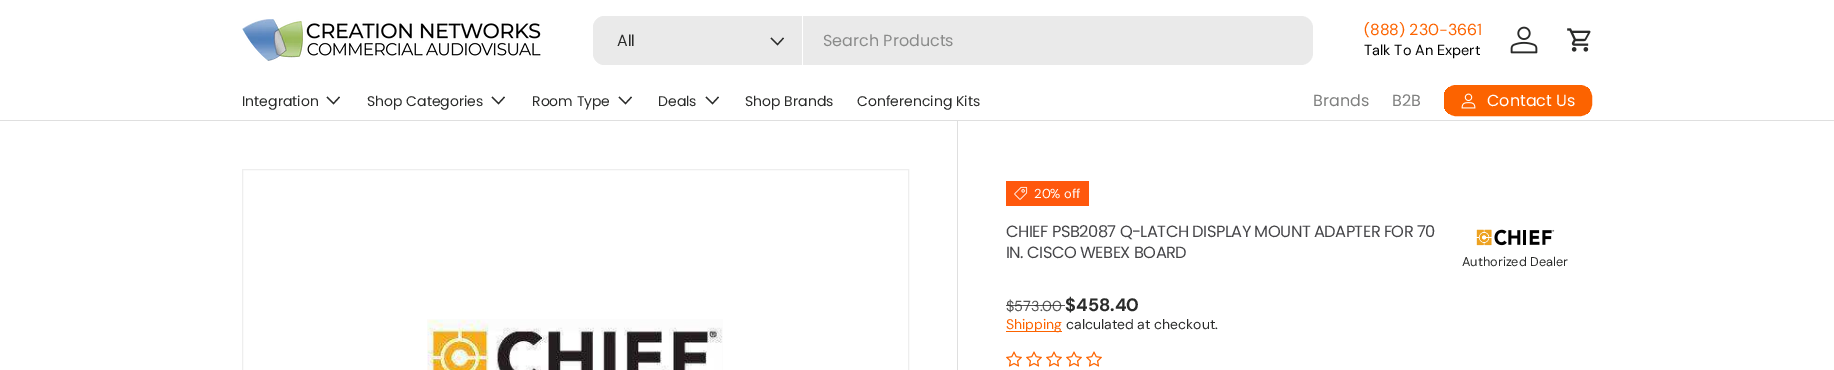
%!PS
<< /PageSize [1834 370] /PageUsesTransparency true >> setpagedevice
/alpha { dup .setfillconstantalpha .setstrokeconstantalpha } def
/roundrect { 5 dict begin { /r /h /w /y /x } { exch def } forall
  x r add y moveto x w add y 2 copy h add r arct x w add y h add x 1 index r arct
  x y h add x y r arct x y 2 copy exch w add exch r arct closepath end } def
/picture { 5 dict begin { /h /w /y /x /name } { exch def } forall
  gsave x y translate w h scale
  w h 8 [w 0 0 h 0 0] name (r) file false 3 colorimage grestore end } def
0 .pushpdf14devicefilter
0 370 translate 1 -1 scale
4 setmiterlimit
1 setgray
0 0 1834 370 rectfill
0.875 setgray
0 120 1834 1 rectfill
(img1.rgb) 242 19 299 42 picture
0.918 setgray
593 16 720 49 12 roundrect fill
newpath 605 16 moveto 803 16 lineto 803 65 lineto 605 65 lineto 598.5 65 593 59.5 593 53 curveto 593 28 lineto 593 21.5 598.5 16 605 16 curveto closepath fill
1 setgray
802 16 1 49 rectfill
/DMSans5-Regular [16 0 0 -16 0 0] selectfont
0.165 0.169 0.165 setrgbcolor
617 46 moveto (All) show
1.2 setlinewidth
newpath 783.5 38 moveto 777.5 44.5 lineto 771 38 lineto stroke
/Poppins-Regular [16 0 0 -16 0 0] selectfont
0.541 0.545 0.541 setrgbcolor
823 46 moveto (Search Products) show
/DMSans5-Regular [16 0 0 -16 0 0] selectfont
0.988 0.388 0 setrgbcolor
1364 35 moveto (\(888\) 230-3661) show
/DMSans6-Regular [14.5 0 0 -14.5 0 0] selectfont
0 setgray
1364 55 moveto (Talk To An Expert) show
(img2.rgb) 1510 26 28 28 picture
(img3.rgb) 1567 28 24 24 picture
/Poppins-Regular [14 0 0 -14 0 0] selectfont
0.165 0.169 0.165 setrgbcolor
242 106 moveto (Integration) show
newpath 339.5 97 moveto 333.5 103.5 lineto 327 97 lineto stroke
367 106 moveto (Shop Categories) show
newpath 504.5 97 moveto 498.5 103.5 lineto 492 97 lineto stroke
532 106 moveto (Room Type) show
newpath 631.5 97 moveto 625.5 103.5 lineto 619 97 lineto stroke
658 106 moveto (Deals) show
newpath 718.5 97 moveto 712.5 103.5 lineto 706 97 lineto stroke
745 106 moveto (Shop Brands) show
857 106 moveto (Conferencing Kits) show
/Poppins-Regular [16 0 0 -16 0 0] selectfont
0.498 0.502 0.498 setrgbcolor
1313 106 moveto (Brands) show
1392 106 moveto (B2B) show
gsave
1444 85 148 31 12 roundrect clip newpath
gsave newpath 1444 87 moveto 1590 87 lineto 1590 114 lineto 1444 114 lineto closepath clip newpath
<< /ShadingType 2 /ColorSpace /DeviceRGB /Coords [1167 49 1581 152] /Extend [true true] /Function << /FunctionType 3 /Domain [0 1] /Functions [<< /FunctionType 2 /Domain [0 1] /C0 [0.988 0.514 0.208] /C1 [0.988 0.514 0.208] /N 1 >> << /FunctionType 2 /Domain [0 1] /C0 [0.988 0.388 0] /C1 [0.988 0.388 0] /N 1 >>] /Bounds [0.6] /Encode [0 1 0 1] >> >> shfill grestore
grestore
0.988 0.388 0 setrgbcolor
2 setlinewidth
1445 86 146 29 11 roundrect stroke
(img4.rgb) 1461 93 15 16 picture
1 setgray
1487 106 moveto (Contact Us) show
0.933 setgray
1 setlinewidth
242.5 169.5 666 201 rectstroke
(img5.rgb) 427 319 296 51 picture
0.875 setgray
957 121 1 249 rectfill
1 0.345 0.051 setrgbcolor
1006 181 83 25 rectfill
(img6.rgb) 1014 186 14 14 picture
/DMSans-Regular [13 0 0 -13 0 0] selectfont
1 setgray
1034 198 moveto (20% off) show
/Poppins-Regular [16.25 0 0 -16.25 0 0] selectfont
0.275 0.275 0.286 setrgbcolor
1006 237 moveto -0.5 0 (CHIEF PSB2087 Q-LATCH DISPLAY MOUNT ADAPTER FOR 70) ashow
1006 258 moveto -0.5 0 (IN. CISCO WEBEX BOARD) ashow
(img7.rgb) 1476 229 79 17 picture
/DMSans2-Regular [12.75 0 0 -12.75 0 0] selectfont
0.165 0.169 0.165 setrgbcolor
1462 266 moveto (Authorized Dealer) show
/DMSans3-Regular [14.5 0 0 -14.5 0 0] selectfont
0.333 setgray
1006 311 moveto ($573.00) show
0.8 alpha
0.165 0.169 0.165 setrgbcolor
1006 305 59 1 rectfill
/DMSans-Bold [18 0 0 -18 0 0] selectfont
1 alpha
1065 311 moveto ($458.40) show
0.988 0.388 0 setrgbcolor
1006 331 56 1 rectfill
/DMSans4-Regular [14 0 0 -14 0 0] selectfont
1006 329 moveto (Shipping) show
0.165 0.169 0.165 setrgbcolor
1066 329 moveto (calculated at checkout.) show
(img8.rgb) 1006 351 16 16 picture
(img8.rgb) 1026 351 16 16 picture
(img8.rgb) 1046 351 16 16 picture
(img8.rgb) 1066 351 16 16 picture
(img8.rgb) 1086 351 16 16 picture
.poppdf14devicefilter showpage
